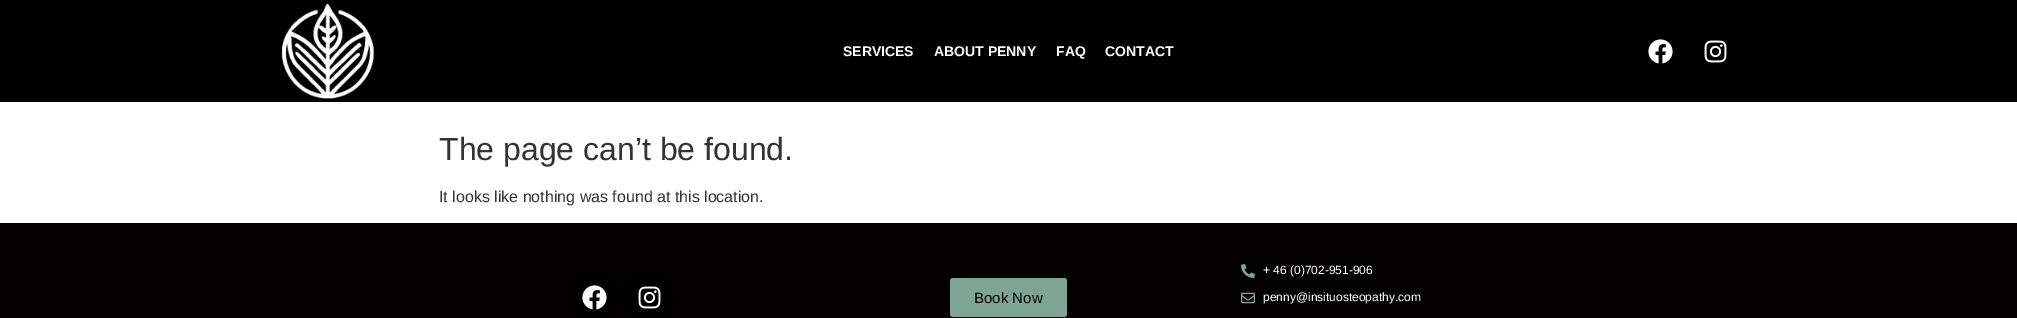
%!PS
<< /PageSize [2017 318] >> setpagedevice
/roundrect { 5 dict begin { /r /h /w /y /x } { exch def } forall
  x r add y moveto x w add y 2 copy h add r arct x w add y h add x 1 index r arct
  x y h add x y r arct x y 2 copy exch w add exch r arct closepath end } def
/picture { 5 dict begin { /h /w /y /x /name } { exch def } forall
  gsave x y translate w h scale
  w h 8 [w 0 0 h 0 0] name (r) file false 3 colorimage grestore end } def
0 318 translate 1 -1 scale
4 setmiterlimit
1 setgray
0 0 2017 318 rectfill
0 setgray
0 0 2017 102 rectfill
(img1.rgb) 281 3 93 96 picture
/LiberationSans-Bold [14 0 0 -14 0 0] selectfont
1 setgray
843 56 moveto (SERVICES) show
934 56 moveto (ABOUT PENNY) show
1056 56 moveto (FAQ) show
1105 56 moveto (CONTACT) show
(img2.rgb) 1648 39 25 25 picture
(img3.rgb) 1704 40 23 23 picture
/LiberationSans-Regular [32 0 0 -32 0 0] selectfont
0.2 setgray
439 160 moveto (The page can’t be found.) show
/LiberationSans-Regular [16 0 0 -16 0 0] selectfont
439 202 moveto (It looks like nothing was found at this location.) show
0.012 0 0 setrgbcolor
0 223 2017 95 rectfill
0 setgray
newpath 594 298 25 0 360 arc closepath fill
(img4.rgb) 582 285 25 25 picture
newpath 649 298 25 0 360 arc closepath fill
(img3.rgb) 638 286 23 23 picture
0.494 0.647 0.569 setrgbcolor
950 278 117 39 3 roundrect fill
/LiberationSans-Regular [15 0 0 -15 0 0] selectfont
0 setgray
974 303 moveto (Book Now) show
(img5.rgb) 1241 264 14 14 picture
/LiberationSans-Regular [12 0 0 -12 0 0] selectfont
1 setgray
1263 274 moveto (+ 46 \(0\)702-951-906) show
(img6.rgb) 1241 292 14 12 picture
1263 301 moveto (penny@insituosteopathy.com) show
showpage
